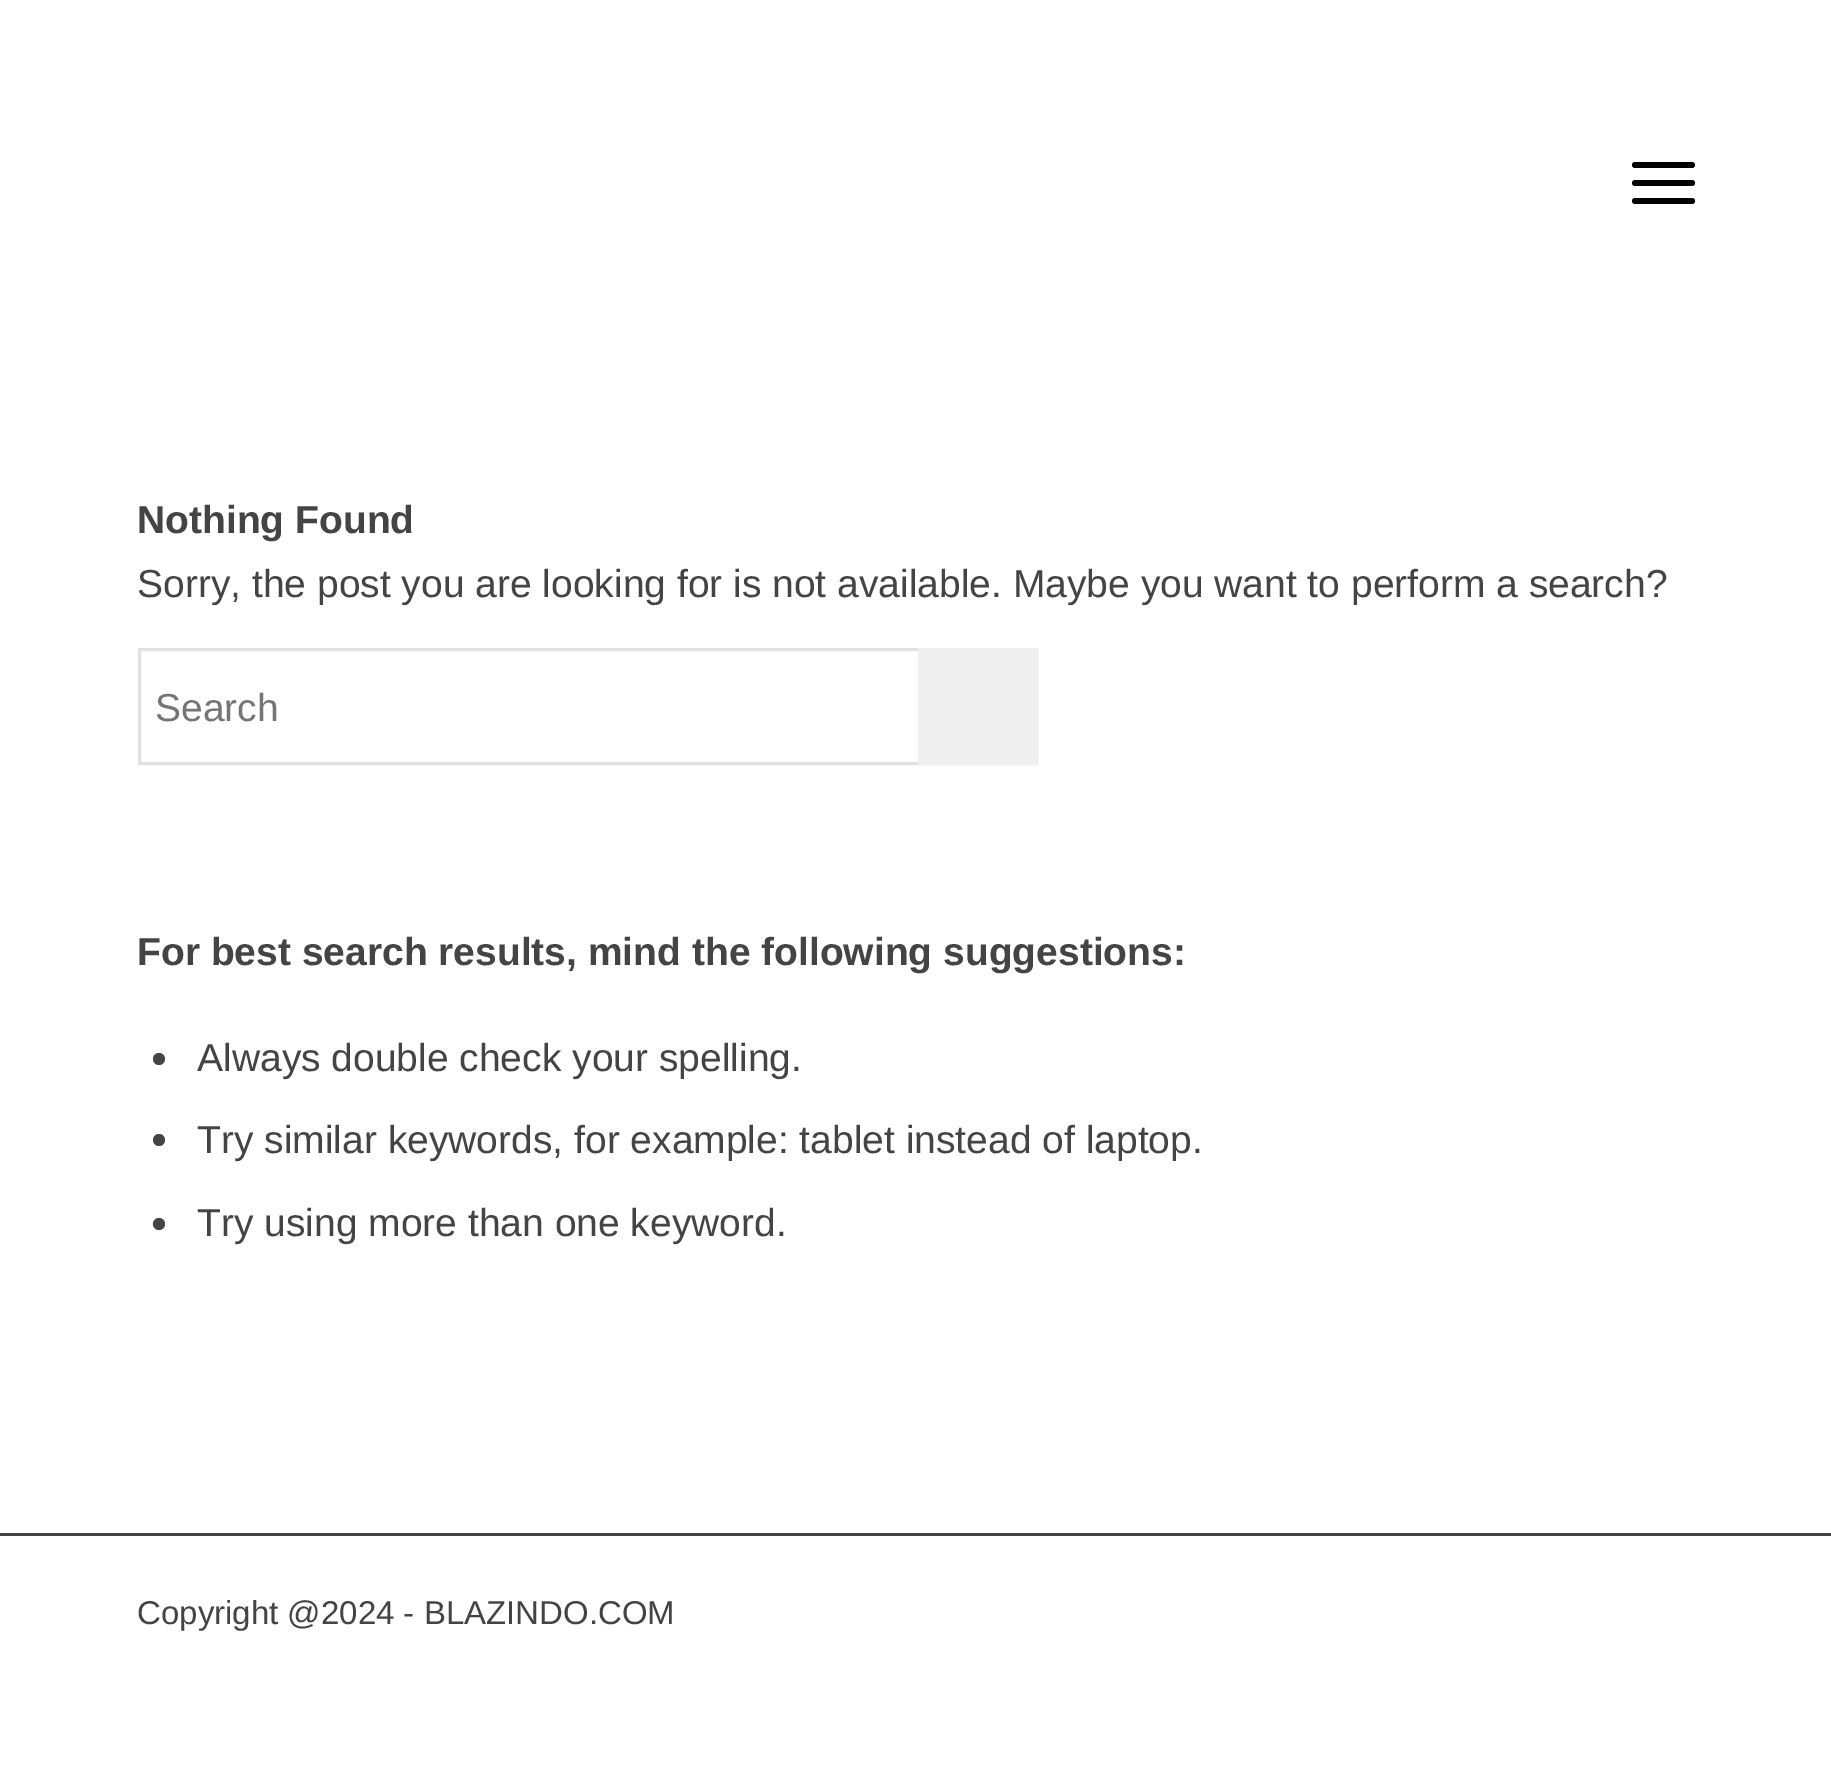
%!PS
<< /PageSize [1831 1788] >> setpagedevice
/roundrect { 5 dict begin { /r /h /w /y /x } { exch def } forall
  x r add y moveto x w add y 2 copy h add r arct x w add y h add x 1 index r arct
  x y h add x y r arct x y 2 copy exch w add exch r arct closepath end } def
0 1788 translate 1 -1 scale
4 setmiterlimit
1 setgray
0 0 1831 1788 rectfill
0 setgray
1632 180 63 6 3 roundrect fill
1632 162 63 6 3 roundrect fill
1632 198 63 6 3 roundrect fill
/LiberationSans-Bold [39 0 0 -39 0 0] selectfont
0.267 setgray
137 533 moveto (Nothing Found) show
/LiberationSans-Regular [39 0 0 -39 0 0] selectfont
137 597 moveto (Sorry, the post you are looking for is not available. Maybe you want to perform a search?) show
0.882 setgray
3 setlinewidth
139.5 649.5 897 114 rectstroke
0.459 setgray
155 721 moveto (Search) show
0.937 setgray
918 648 120 117 rectfill
/LiberationSans-Bold [39 0 0 -39 0 0] selectfont
0.267 setgray
137 965 moveto (For best search results, mind the following suggestions:) show
newpath 159 1059 6 0 360 arc closepath fill
/LiberationSans-Regular [39 0 0 -39 0 0] selectfont
197 1071 moveto (Always double check your spelling.) show
newpath 159 1140 6 0 360 arc closepath fill
197 1153 moveto (Try similar keywords, for example: tablet instead of laptop.) show
newpath 159 1224 6 0 360 arc closepath fill
197 1236 moveto (Try using more than one keyword.) show
0 1533 1831 3 rectfill
/LiberationSans-Regular [33 0 0 -33 0 0] selectfont
137 1624 moveto (Copyright @2024 - BLAZINDO.COM) show
showpage
